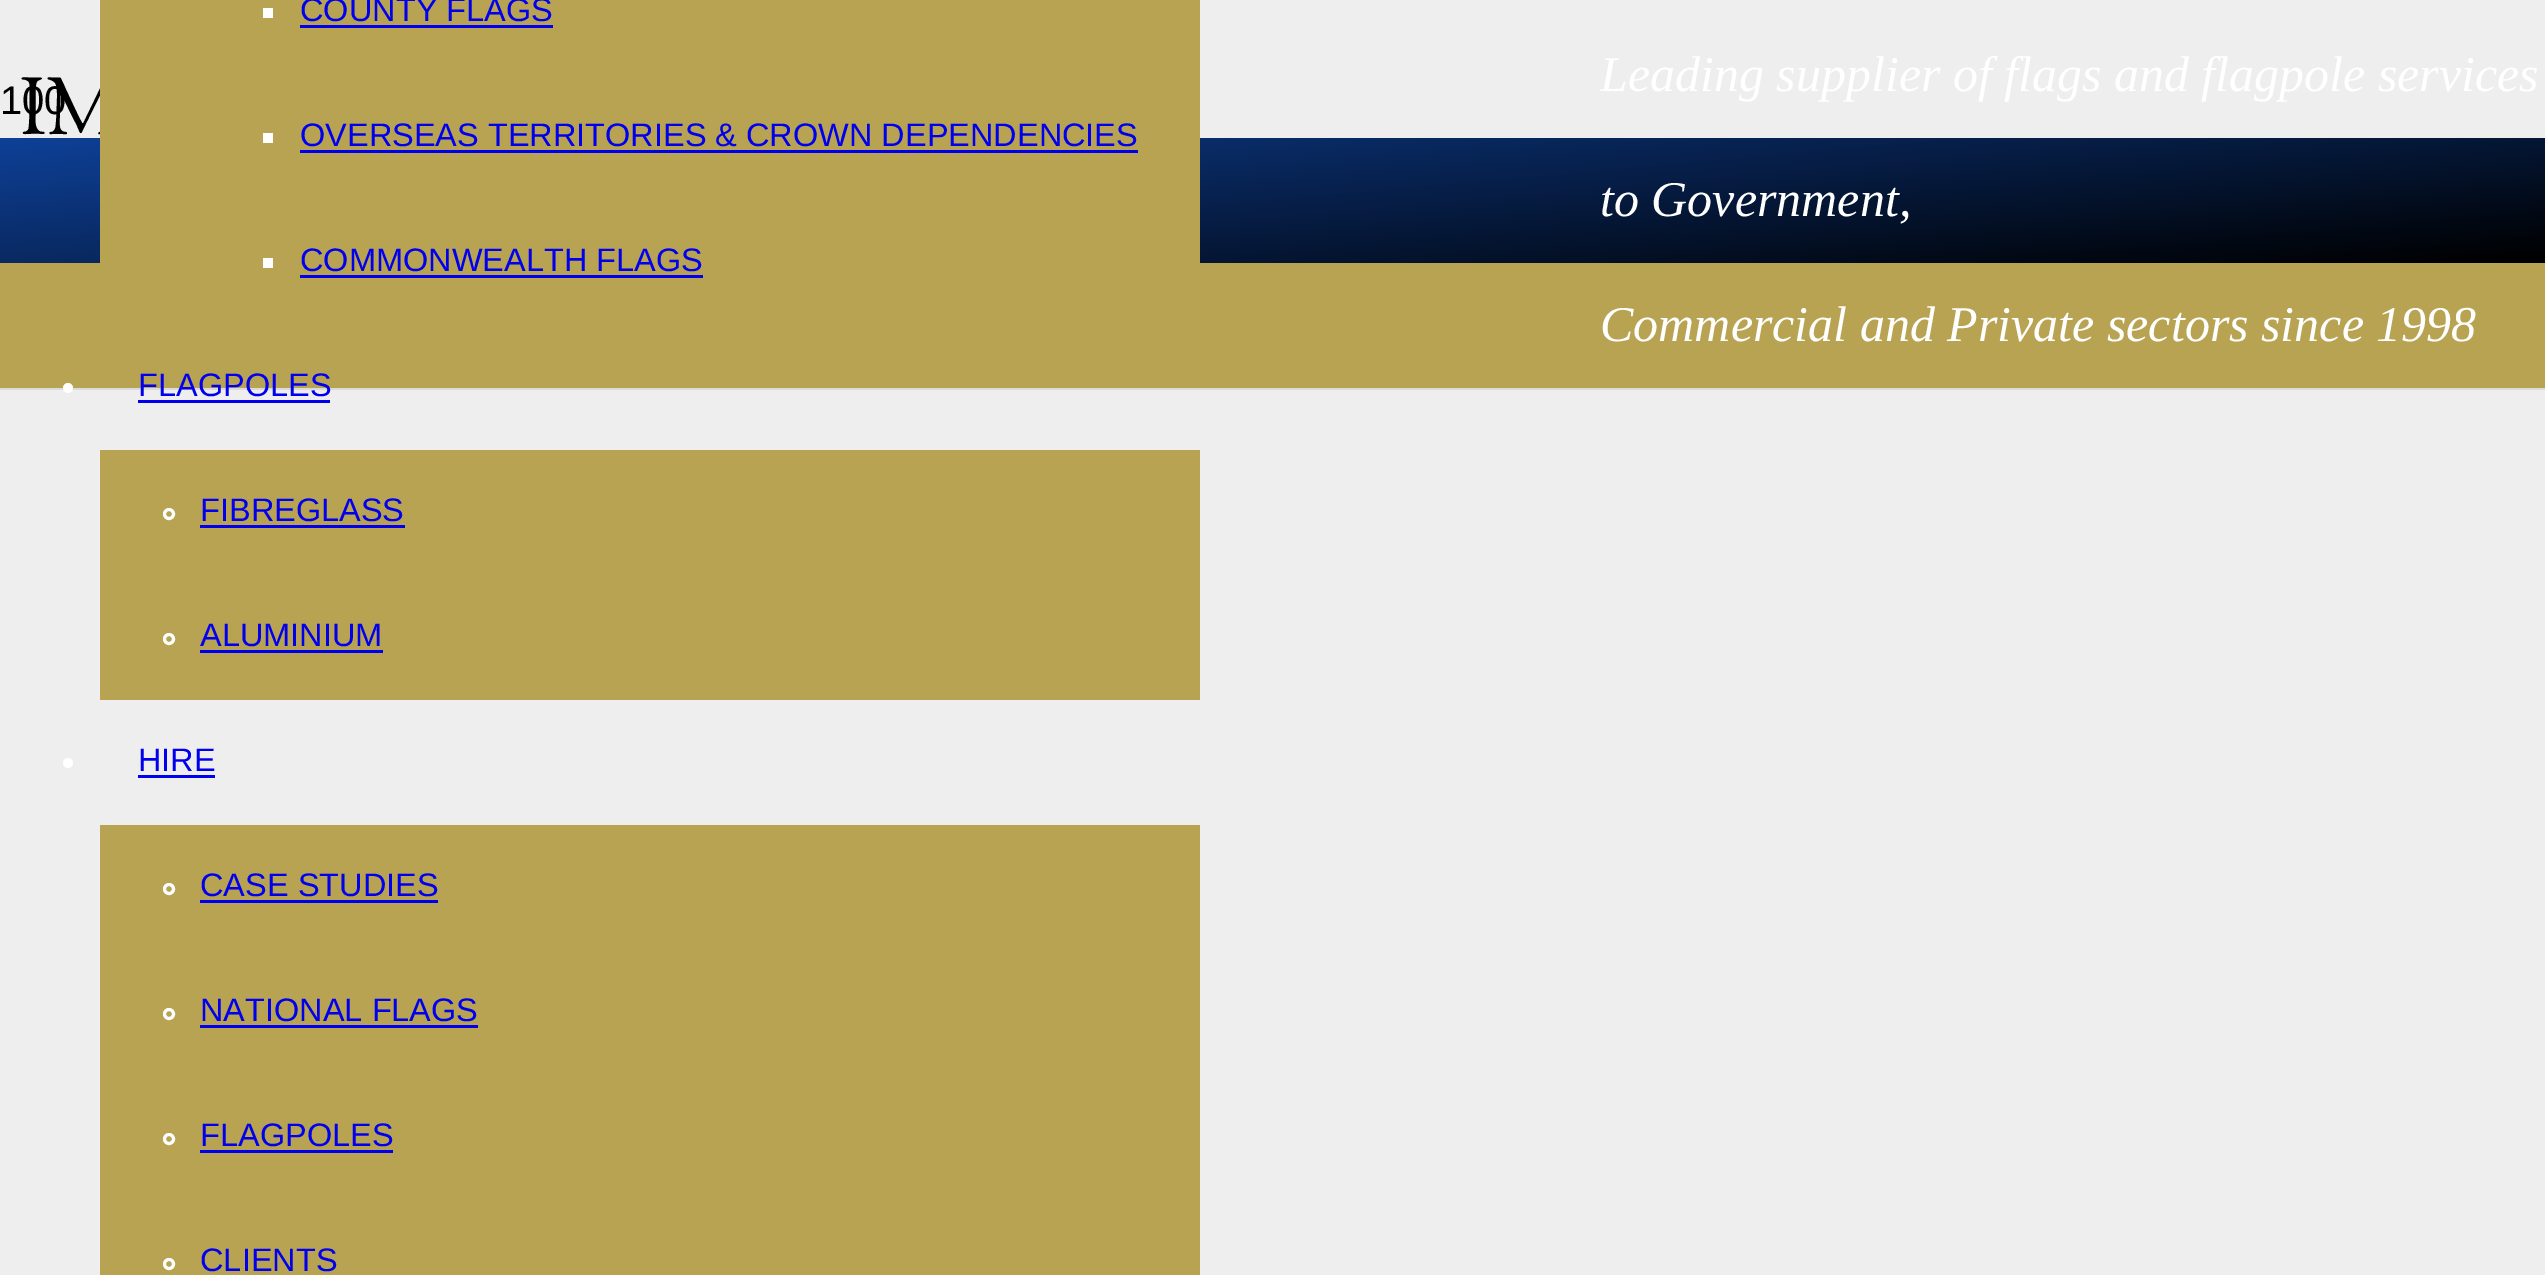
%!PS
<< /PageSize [2545 1275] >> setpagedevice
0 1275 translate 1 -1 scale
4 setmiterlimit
0.933 setgray
0 0 2545 1275 rectfill
/SortsMillGoudy-Regular [80 0 0 -80 0 0] selectfont
0 setgray
20 134 moveto (IM) show
/LiberationSans-Regular [40 0 0 -40 0 0] selectfont
0 114 moveto (100) show
0.859 setgray
0 388 2545 2 rectfill
0.722 0.639 0.322 setrgbcolor
0 263 2545 125 rectfill
gsave newpath 0 138 moveto 2545 138 lineto 2545 263 lineto 0 263 lineto closepath clip newpath
<< /ShadingType 2 /ColorSpace /DeviceRGB /Coords [1257 27 1288 373] /Extend [true true] /Function << /FunctionType 2 /Domain [0 1] /C0 [0.055 0.251 0.592] /C1 [0 0 0] /N 1 >> >> shfill grestore
100 0 1100 263 rectfill
1 setgray
263 8 10 10 rectfill
/LiberationSans-Regular [32.5 0 0 -32.5 0 0] selectfont
0 0 0.933 setrgbcolor
300 21 moveto (COUNTY FLAGS) show
300 25 253 3 rectfill
1 setgray
263 133 10 10 rectfill
0 0 0.933 setrgbcolor
300 146 moveto (OVERSEAS TERRITORIES & CROWN DEPENDENCIES) show
300 150 838 3 rectfill
1 setgray
263 258 10 10 rectfill
0 0 0.933 setrgbcolor
300 271 moveto (COMMONWEALTH FLAGS) show
300 275 403 3 rectfill
1 setgray
newpath 68 388 5 0 360 arc closepath fill
0 0 0.933 setrgbcolor
138 396 moveto (FLAGPOLES) show
138 400 192 3 rectfill
0.722 0.639 0.322 setrgbcolor
100 450 1100 250 rectfill
1 setgray
3 setlinewidth
newpath 169 514 4.5 0 360 arc closepath stroke
0 0 0.933 setrgbcolor
200 521 moveto (FIBREGLASS) show
200 525 205 3 rectfill
1 setgray
newpath 169 639 4.5 0 360 arc closepath stroke
0 0 0.933 setrgbcolor
200 646 moveto (ALUMINIUM) show
200 650 183 3 rectfill
1 setgray
newpath 68 763 5 0 360 arc closepath fill
0 0 0.933 setrgbcolor
138 771 moveto (HIRE) show
138 775 77 3 rectfill
0.722 0.639 0.322 setrgbcolor
100 825 1100 450 rectfill
1 setgray
newpath 169 889 4.5 0 360 arc closepath stroke
0 0 0.933 setrgbcolor
200 896 moveto (CASE STUDIES) show
200 900 238 3 rectfill
1 setgray
newpath 169 1014 4.5 0 360 arc closepath stroke
0 0 0.933 setrgbcolor
200 1021 moveto (NATIONAL FLAGS) show
200 1025 278 3 rectfill
1 setgray
newpath 169 1139 4.5 0 360 arc closepath stroke
0 0 0.933 setrgbcolor
200 1146 moveto (FLAGPOLES) show
200 1150 193 3 rectfill
1 setgray
newpath 169 1264 4.5 0 360 arc closepath stroke
0 0 0.933 setrgbcolor
200 1271 moveto (CLIENTS) show
/LiberationSerif-Italic [50 0 0 -50 0 0] selectfont
1 setgray
1600 91 moveto (Leading supplier of flags and flagpole services) show
1600 216 moveto (to Government,) show
1600 341 moveto (Commercial and Private sectors since 1998) show
showpage
